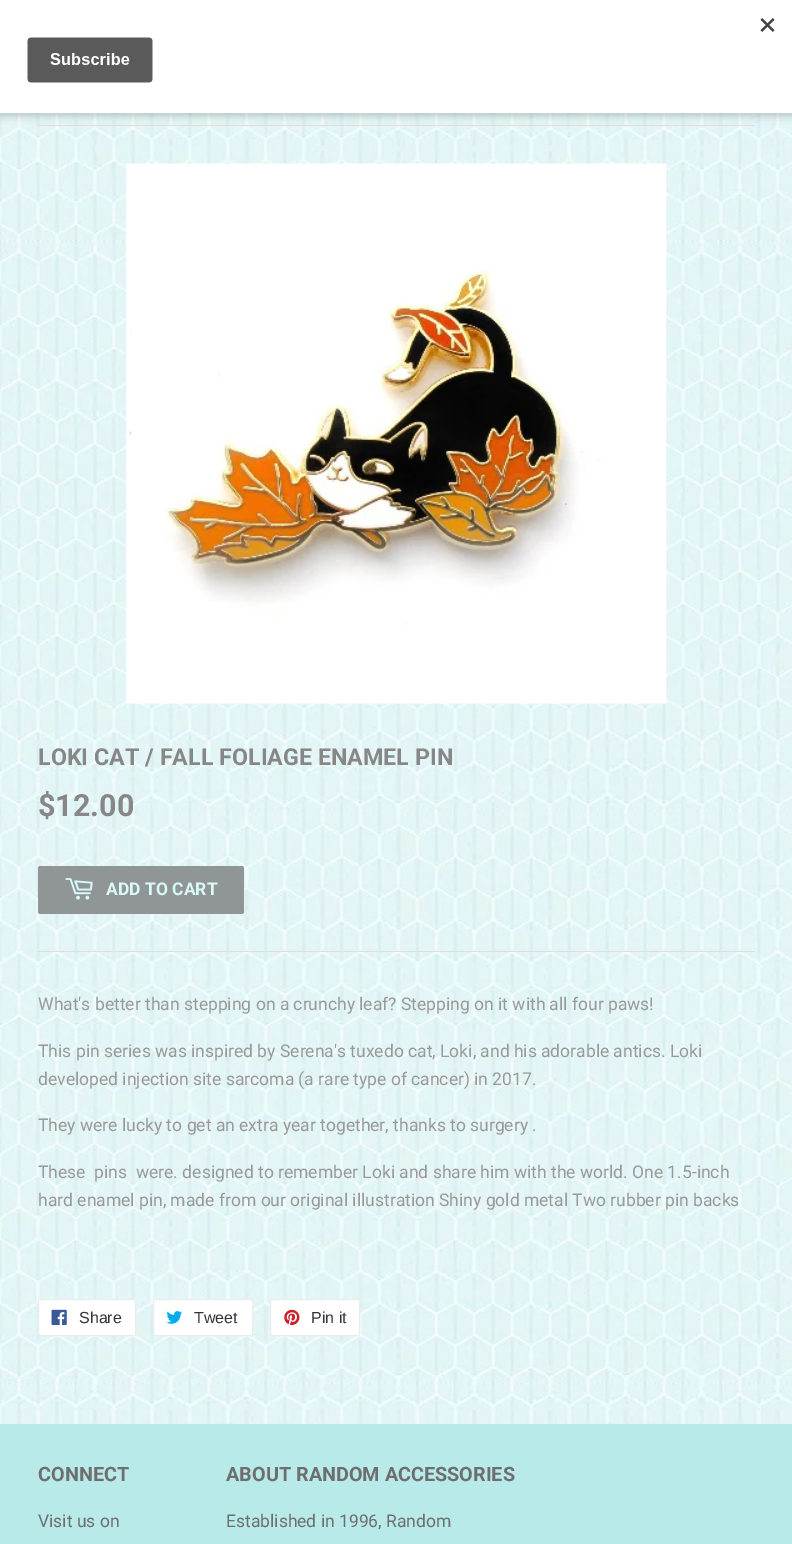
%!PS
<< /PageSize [792 1544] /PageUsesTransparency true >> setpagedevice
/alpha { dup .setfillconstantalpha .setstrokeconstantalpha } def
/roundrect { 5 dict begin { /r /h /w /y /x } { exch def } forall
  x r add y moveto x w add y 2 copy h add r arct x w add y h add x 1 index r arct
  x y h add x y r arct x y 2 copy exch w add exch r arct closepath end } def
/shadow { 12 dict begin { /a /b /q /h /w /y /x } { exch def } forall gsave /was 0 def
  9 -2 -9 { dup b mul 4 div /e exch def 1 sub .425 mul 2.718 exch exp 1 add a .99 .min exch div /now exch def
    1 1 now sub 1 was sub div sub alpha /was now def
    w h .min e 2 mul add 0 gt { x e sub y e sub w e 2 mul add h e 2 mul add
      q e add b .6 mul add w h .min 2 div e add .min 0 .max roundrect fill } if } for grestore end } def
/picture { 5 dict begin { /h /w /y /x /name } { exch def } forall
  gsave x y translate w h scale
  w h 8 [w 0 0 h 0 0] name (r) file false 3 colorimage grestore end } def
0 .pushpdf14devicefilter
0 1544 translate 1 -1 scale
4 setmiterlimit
1 setgray
0 0 792 1544 rectfill
(img1.rgb) 0 113 792 1311 picture
0.871 setgray
38 125 717 1 rectfill
0 setgray
0 4 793 112 0 4 0.2 shadow
1 setgray
0 0 792 113 rectfill
(img2.rgb) 27 18 748 65 picture
(img3.rgb) 126 163 541 541 picture
/Roboto-Bold [23.3 0 0 -23.3 0 0] selectfont
0.529 setgray
38 765 moveto (LOKI CAT / FALL FOLIAGE ENAMEL PIN) show
/Roboto-Bold [30.5 0 0 -30.5 0 0] selectfont
38 816 moveto ($12.00) show
0.565 0.584 0.584 setrgbcolor
38 866 206 48 2.5 roundrect fill
(img4.rgb) 65 878 28 22 picture
/Roboto-Bold [17.5 0 0 -17.5 0 0] selectfont
0.847 0.984 0.976 setrgbcolor
106 895 moveto (ADD TO CART) show
0.871 setgray
38 951 717 1 rectfill
/Roboto-Regular [17.5 0 0 -17.5 0 0] selectfont
0.6 setgray
38 1010 moveto (What's better than stepping on a crunchy leaf? Stepping on it with all four paws!) show
38 1057 moveto (This pin series was inspired by Serena's tuxedo cat, Loki, and his adorable antics. Loki) show
38 1085 moveto (developed injection site sarcoma \(a rare type of cancer\) in 2017.) show
38 1131 moveto (They were lucky to get an extra year together, thanks to surgery .) show
38 1178 moveto (These  pins  were. designed to remember Loki and share him with the world. One 1.5-inch) show
38 1206 moveto (hard enamel pin, made from our original illustration Shiny gold metal Two rubber pin backs) show
1 setgray
38.5 1299.5 97 36 2 roundrect gsave fill grestore
0.925 setgray
stroke
(img5.rgb) 51 1309 16 16 picture
/LiberationSans-Regular [16 0 0 -16 0 0] selectfont
0.2 setgray
79 1323 moveto (Share) show
1 setgray
153.5 1299.5 99 36 2 roundrect gsave fill grestore
0.925 setgray
stroke
(img6.rgb) 166 1311 16 13 picture
0.2 setgray
194 1323 moveto (Tweet) show
1 setgray
270.5 1299.5 89 36 2 roundrect gsave fill grestore
0.925 setgray
stroke
(img7.rgb) 284 1309 16 16 picture
0.2 setgray
311 1323 moveto (Pin it) show
0.722 0.918 0.918 setrgbcolor
0 1424 792 120 rectfill
/Roboto-Bold [19.8 0 0 -19.8 0 0] selectfont
0.431 setgray
38 1481 moveto (CONNECT) show
/Roboto-Regular [17.5 0 0 -17.5 0 0] selectfont
38 1527 moveto (Visit us on) show
/Roboto-Bold [19.8 0 0 -19.8 0 0] selectfont
226 1481 moveto (ABOUT RANDOM ACCESSORIES) show
/Roboto-Regular [17.5 0 0 -17.5 0 0] selectfont
226 1527 moveto (Established in 1996, Random) show
.poppdf14devicefilter showpage
